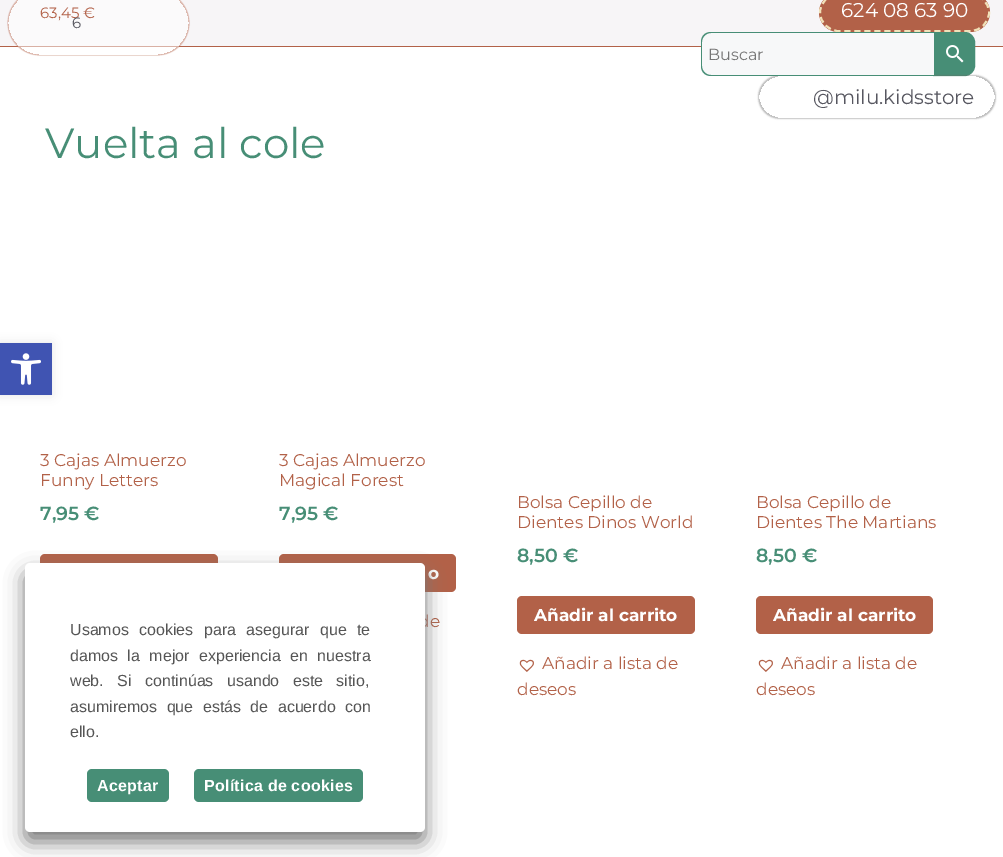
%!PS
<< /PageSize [1003 857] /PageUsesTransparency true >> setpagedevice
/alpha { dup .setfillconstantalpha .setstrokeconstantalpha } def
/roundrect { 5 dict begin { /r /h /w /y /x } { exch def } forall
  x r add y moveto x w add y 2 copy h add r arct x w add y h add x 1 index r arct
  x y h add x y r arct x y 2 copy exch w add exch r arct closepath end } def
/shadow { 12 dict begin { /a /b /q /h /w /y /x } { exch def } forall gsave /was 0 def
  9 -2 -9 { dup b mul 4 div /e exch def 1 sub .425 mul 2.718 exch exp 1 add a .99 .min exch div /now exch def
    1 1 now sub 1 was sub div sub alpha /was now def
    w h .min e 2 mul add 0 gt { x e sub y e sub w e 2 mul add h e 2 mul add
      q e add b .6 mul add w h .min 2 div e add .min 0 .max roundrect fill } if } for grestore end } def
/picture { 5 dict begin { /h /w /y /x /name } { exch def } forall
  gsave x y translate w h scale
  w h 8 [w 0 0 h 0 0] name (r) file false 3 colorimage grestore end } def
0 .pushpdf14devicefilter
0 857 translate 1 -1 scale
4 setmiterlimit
1 setgray
0 0 1003 857 rectfill
0.969 0.961 0.969 setrgbcolor
0 0 1003 46 rectfill
0.698 0.38 0.282 setrgbcolor
0 46 1003 1 rectfill
gsave
newpath 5 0 moveto 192 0 lineto 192 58 lineto 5 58 lineto closepath 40 -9 moveto 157 -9 lineto 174.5 -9 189 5.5 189 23 curveto 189 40.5 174.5 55 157 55 curveto 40 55 lineto 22.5 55 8 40.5 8 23 curveto 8 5.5 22.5 -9 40 -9 curveto closepath eoclip newpath
8 -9 181 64 32 0.5 1 shadow
grestore
0.5 alpha
1 setgray
8 -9 181 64 32 roundrect fill
/Montserrat-Regular [15 0 0 -15 0 0] selectfont
1 alpha
0.698 0.38 0.282 setrgbcolor
40 18 moveto (63,45 €) show
0.341 0.341 0.376 setrgbcolor
72 28 moveto (6) show
0.698 0.38 0.282 setrgbcolor
819 -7 171 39 19.5 roundrect fill
0.945 0.882 0.725 setrgbcolor
2 setlinewidth
[6 4] 0 setdash
newpath 838.5 -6 moveto 970.5 -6 lineto 980.5 -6 989 2.5 989 12.5 curveto 989 22.5 980.5 31 970.5 31 curveto 838.5 31 lineto 828.5 31 820 22.5 820 12.5 curveto 820 2.5 828.5 -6 838.5 -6 curveto closepath stroke
/Montserrat-Regular [20 0 0 -20 0 0] selectfont
1 setgray
841 17 moveto (624 08 63 90) show
0.278 0.557 0.463 setrgbcolor
newpath 933.5 32.5 moveto 965 32.5 lineto 970 32.5 974.5 37 974.5 42 curveto 974.5 66 lineto 974.5 71 970 75.5 965 75.5 curveto 933.5 75.5 lineto closepath gsave fill grestore
1 setlinewidth
[] 0 setdash
stroke
gsave
newpath 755 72 moveto 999 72 lineto 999 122 lineto 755 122 lineto closepath 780 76 moveto 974 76 lineto 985.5 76 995 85.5 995 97 curveto 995 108.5 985.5 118 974 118 curveto 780 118 lineto 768.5 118 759 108.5 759 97 curveto 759 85.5 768.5 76 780 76 curveto closepath eoclip newpath
0.4 setgray
759 76 236 42 21 1 1 shadow
grestore
0.969 0.973 0.976 setrgbcolor
newpath 711 32 moveto 934 32 lineto 934 76 lineto 711 76 lineto 705.5 76 701 71.5 701 66 curveto 701 42 lineto 701 36.5 705.5 32 711 32 curveto closepath fill
0.278 0.557 0.463 setrgbcolor
newpath 711 32 moveto 934 32 lineto 934 76 lineto 711 76 lineto 705 76 701 72 701 66 curveto 701 42 lineto 701 36 705 32 711 32 curveto closepath 711 33 moveto 934 33 lineto 934 75 lineto 711 75 lineto 706 75 702 71 702 66 curveto 702 42 lineto 702 37 706 33 711 33 curveto closepath eofill
/Montserrat-Regular [16 0 0 -16 0 0] selectfont
0.459 setgray
708 60 moveto (Buscar) show
(img1.rgb) 946 45 18 18 picture
0.47 alpha
1 setgray
759 76 236 42 21 roundrect fill
/Montserrat-Regular [20 0 0 -20 0 0] selectfont
1 alpha
0.341 0.341 0.376 setrgbcolor
813 104 moveto (@milu.kidsstore) show
0 setgray
0 343 52 52 0 5 0.1 shadow
0.251 0.329 0.698 setrgbcolor
0 343 52 52 rectfill
(img2.rgb) 11 353 30 32 picture
/Montserrat-Regular [42 0 0 -42 0 0] selectfont
0.278 0.557 0.463 setrgbcolor
45 158 moveto (Vuelta al cole) show
/Montserrat-Regular [17 0 0 -17 0 0] selectfont
0.698 0.38 0.282 setrgbcolor
40 466 moveto (3 Cajas Almuerzo) show
40 486 moveto (Funny Letters) show
/Montserrat-SemiBold [19 0 0 -19 0 0] selectfont
0.278 0.557 0.463 setrgbcolor
40 520 moveto (7,95 €) show
0.698 0.38 0.282 setrgbcolor
40 554 178 38 5 roundrect fill
/Montserrat-Regular [17 0 0 -17 0 0] selectfont
279 466 moveto (3 Cajas Almuerzo) show
279 486 moveto (Magical Forest) show
/Montserrat-SemiBold [19 0 0 -19 0 0] selectfont
0.278 0.557 0.463 setrgbcolor
279 520 moveto (7,95 €) show
0.698 0.38 0.282 setrgbcolor
279 554 177 38 5 roundrect fill
/Montserrat-Bold [17 0 0 -17 0 0] selectfont
1 setgray
428 579 moveto (o) show
/Montserrat-Regular [17 0 0 -17 0 0] selectfont
0.698 0.38 0.282 setrgbcolor
418 627 moveto (de) show
517 508 moveto (Bolsa Cepillo de) show
517 528 moveto (Dientes Dinos World) show
/Montserrat-SemiBold [19 0 0 -19 0 0] selectfont
0.278 0.557 0.463 setrgbcolor
517 562 moveto (8,50 €) show
0.698 0.38 0.282 setrgbcolor
517 596 178 38 5 roundrect fill
/Montserrat-Bold [17 0 0 -17 0 0] selectfont
1 setgray
534 621 moveto (Añadir al carrito) show
(img3.rgb) 519 659 15 13 picture
/Montserrat-Regular [17 0 0 -17 0 0] selectfont
0.698 0.38 0.282 setrgbcolor
542 669 moveto (Añadir a lista de) show
517 695 moveto (deseos) show
756 508 moveto (Bolsa Cepillo de) show
756 528 moveto (Dientes The Martians) show
/Montserrat-SemiBold [19 0 0 -19 0 0] selectfont
0.278 0.557 0.463 setrgbcolor
756 562 moveto (8,50 €) show
0.698 0.38 0.282 setrgbcolor
756 596 177 38 5 roundrect fill
/Montserrat-Bold [17 0 0 -17 0 0] selectfont
1 setgray
773 621 moveto (Añadir al carrito) show
(img3.rgb) 758 659 15 13 picture
/Montserrat-Regular [17 0 0 -17 0 0] selectfont
0.698 0.38 0.282 setrgbcolor
781 669 moveto (Añadir a lista de) show
756 695 moveto (deseos) show
0.467 setgray
25 573 400 269 5 10 1 shadow
1 setgray
25 563 400 269 5 roundrect fill
/LiberationSans-Regular [16 0 0 -16 0 0] selectfont
0.333 setgray
70 635 moveto 6 0 32 (Usamos cookies para asegurar que te) widthshow
70 661 moveto 5 0 32 (damos la mejor experiencia en nuestra) widthshow
70 686 moveto 9 0 32 (web. Si continúas usando este sitio,) widthshow
70 712 moveto 5 0 32 (asumiremos que estás de acuerdo con) widthshow
70 737 moveto (ello.) show
0.278 0.557 0.463 setrgbcolor
87 769 82 33 5 roundrect fill
/LiberationSans-Bold [16 0 0 -16 0 0] selectfont
1 setgray
97 791 moveto 0.25 0 (Aceptar) ashow
0.278 0.557 0.463 setrgbcolor
194 769 169 33 5 roundrect fill
1 setgray
204 791 moveto 0.25 0 (Política de cookies) ashow
.poppdf14devicefilter showpage
